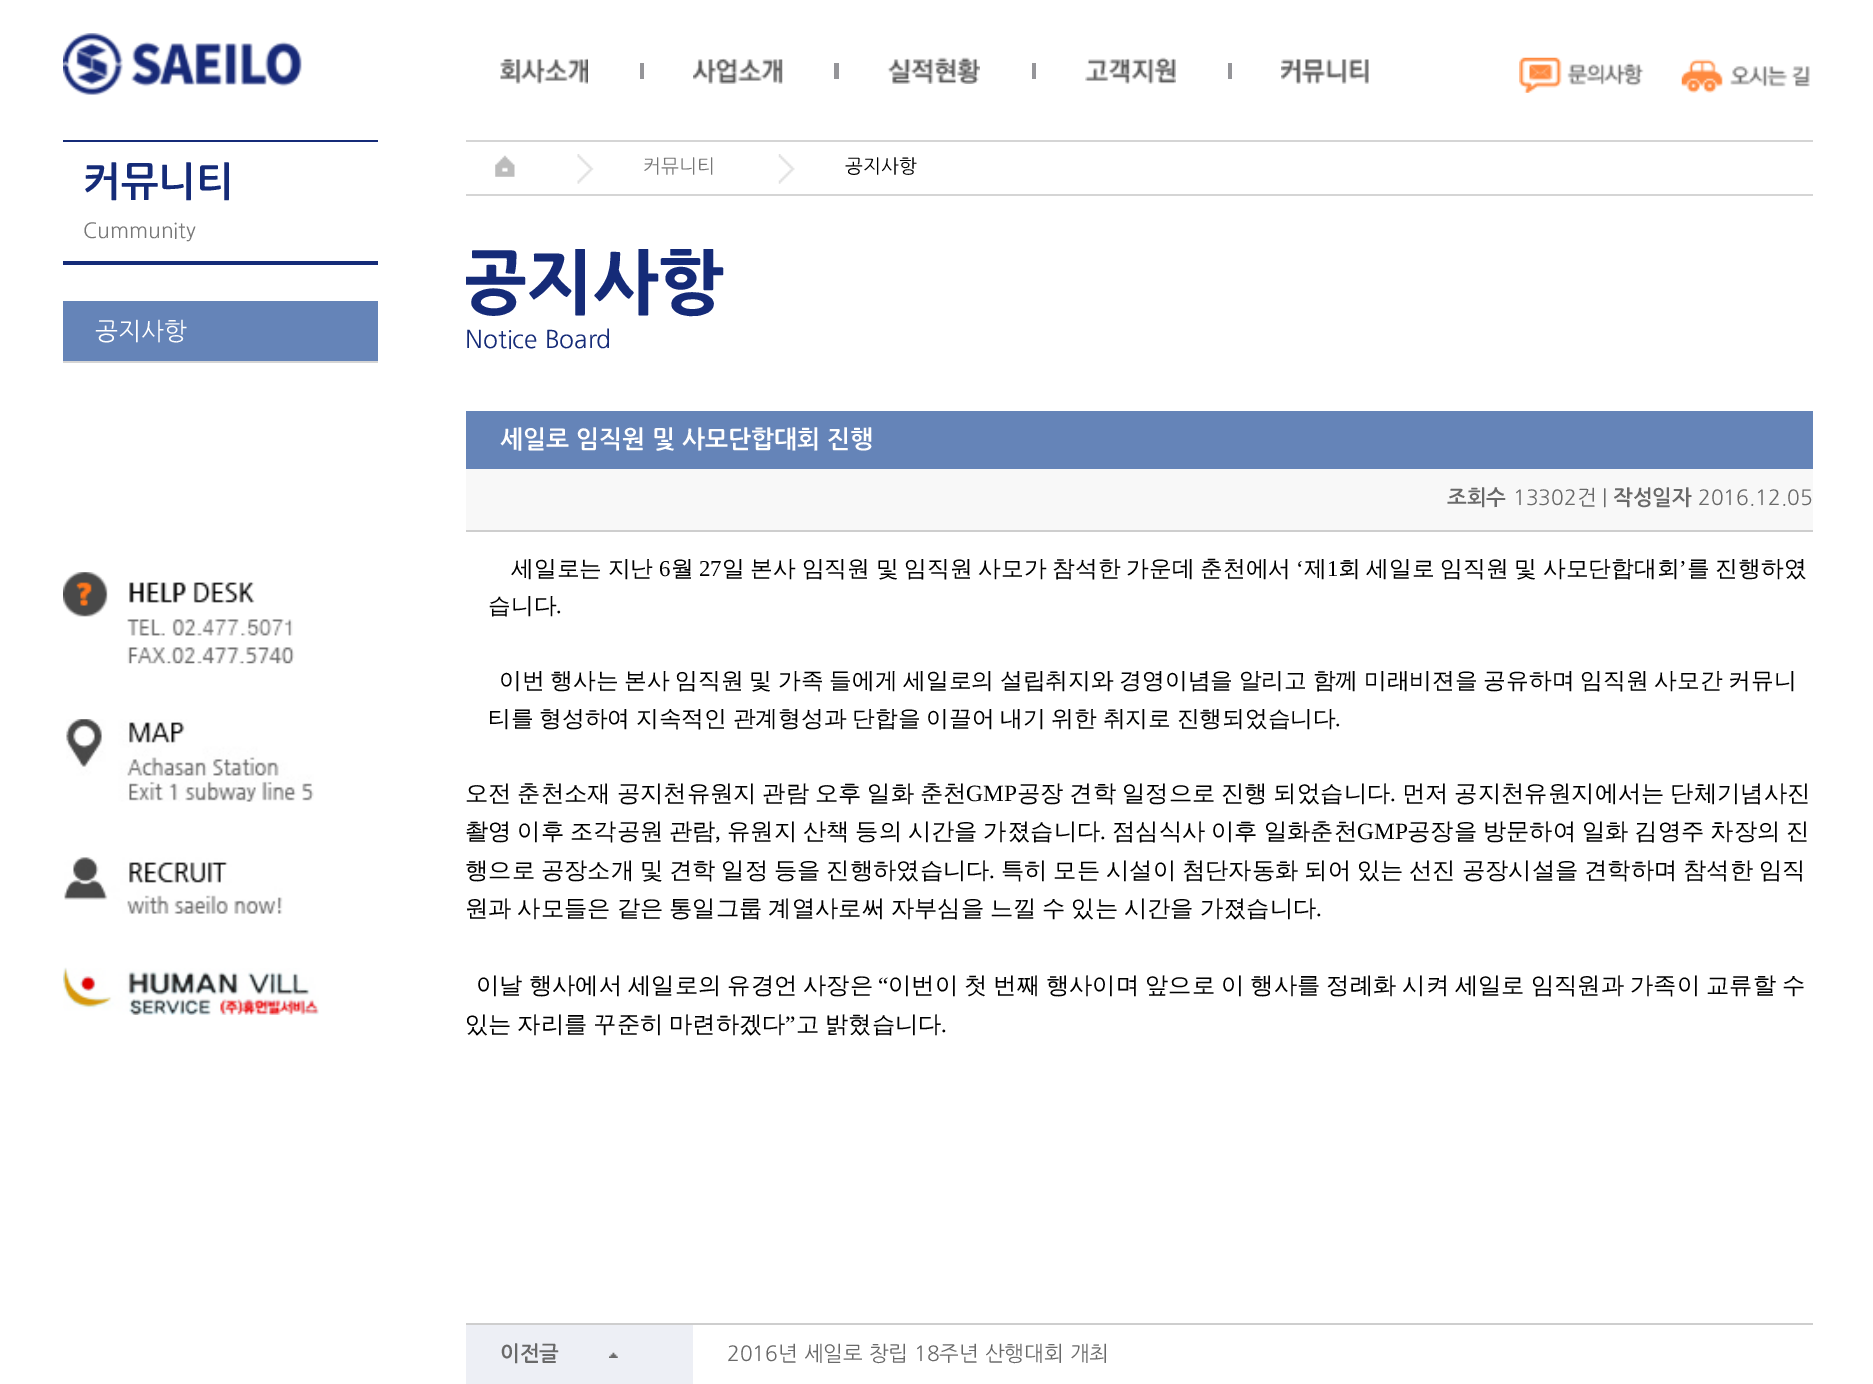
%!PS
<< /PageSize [1873 1384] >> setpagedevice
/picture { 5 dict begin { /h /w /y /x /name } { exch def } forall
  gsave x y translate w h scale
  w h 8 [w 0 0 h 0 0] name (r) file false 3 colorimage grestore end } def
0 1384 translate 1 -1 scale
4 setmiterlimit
1 setgray
0 0 1873 1384 rectfill
(img1.rgb) 63 33 239 62 picture
(img2.rgb) 500 58 88 26 picture
0.584 0.584 0.6 setrgbcolor
640 63 4 16 rectfill
(img3.rgb) 693 58 90 26 picture
834 63 5 16 rectfill
(img4.rgb) 887 57 93 27 picture
1032 63 4 16 rectfill
(img5.rgb) 1085 57 91 27 picture
1228 63 4 16 rectfill
(img6.rgb) 1281 58 88 26 picture
(img7.rgb) 1519 57 125 36 picture
(img8.rgb) 1681 59 129 34 picture
0.082 0.169 0.471 setrgbcolor
63 140 315 2 rectfill
63 261 315 4 rectfill
/NanumGothic-Bold [40 0 0 -40 0 0] selectfont
83 196 moveto (커뮤니티) show
/NanumGothic-Regular [21 0 0 -21 0 0] selectfont
0.467 setgray
83 238 moveto (Cummunity) show
0.396 0.518 0.722 setrgbcolor
63 301 315 60 rectfill
0.835 setgray
63 361 315 2 rectfill
/NanumGothic-Regular [24.5 0 0 -24.5 0 0] selectfont
1 setgray
95 340 moveto (공지사항) show
(img9.rgb) 63 572 232 92 picture
(img10.rgb) 66 719 248 83 picture
(img11.rgb) 64 857 219 57 picture
(img12.rgb) 63 967 256 48 picture
0.835 setgray
466 140 1347 2 rectfill
466 194 1347 2 rectfill
(img13.rgb) 495 155 20 22 picture
(img14.rgb) 577 154 17 30 picture
/NanumGothic-Regular [19 0 0 -19 0 0] selectfont
0.467 setgray
643 173 moveto (커뮤니티) show
(img15.rgb) 778 154 17 30 picture
0 setgray
845 173 moveto (공지사항) show
gsave
466 249 1347 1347 rectclip
/NanumGothic-ExtraBold [70 0 0 -70 0 0] selectfont
0.082 0.169 0.471 setrgbcolor
461 308 moveto (공지사항) show
grestore
/NanumGothic-Regular [24.5 0 0 -24.5 0 0] selectfont
0.082 0.169 0.471 setrgbcolor
465 348 moveto (Notice Board) show
0.396 0.518 0.722 setrgbcolor
466 411 1347 58 rectfill
/NanumGothic-Bold [24.5 0 0 -24.5 0 0] selectfont
1 setgray
500 448 moveto (세일로 임직원 및 사모단합대회 진행) show
0.973 setgray
466 469 1347 61 rectfill
0.808 setgray
466 530 1347 2 rectfill
/NanumGothic-Bold [21 0 0 -21 0 0] selectfont
0.412 setgray
1447 505 moveto (조회수) show
/NanumGothic-Regular [21 0 0 -21 0 0] selectfont
1513 505 moveto (13302건 |) show
/NanumGothic-Bold [21 0 0 -21 0 0] selectfont
1613 505 moveto (작성일자) show
/NanumGothic-Regular [21 0 0 -21 0 0] selectfont
1698 505 moveto (2016.12.05) show
/WenQuanYiZenHei-Medium [22.75 0 0 -22.75 0 0] selectfont
0 setgray
511 576 moveto -1.1 0 32 (세일로는 지난) widthshow
/LiberationSerif-Regular [22.75 0 0 -22.75 0 0] selectfont
659 576 moveto (6) show
/WenQuanYiZenHei-Medium [22.75 0 0 -22.75 0 0] selectfont
671 576 moveto (월) show
/LiberationSerif-Regular [22.75 0 0 -22.75 0 0] selectfont
699 576 moveto (27) show
/WenQuanYiZenHei-Medium [22.75 0 0 -22.75 0 0] selectfont
722 576 moveto -1.1 0 32 (일 본사 임직원 및 임직원 사모가 참석한 가운데 춘천에서) widthshow
/LiberationSerif-Regular [22.75 0 0 -22.75 0 0] selectfont
1296 576 moveto (‘) show
/WenQuanYiZenHei-Medium [22.75 0 0 -22.75 0 0] selectfont
1304 576 moveto (제) show
/LiberationSerif-Regular [22.75 0 0 -22.75 0 0] selectfont
1327 576 moveto (1) show
/WenQuanYiZenHei-Medium [22.75 0 0 -22.75 0 0] selectfont
1338 576 moveto -1.1 0 32 (회 세일로 임직원 및 사모단합대회) widthshow
/LiberationSerif-Regular [22.75 0 0 -22.75 0 0] selectfont
1679 576 moveto (’) show
/WenQuanYiZenHei-Medium [22.75 0 0 -22.75 0 0] selectfont
1687 576 moveto -1.1 0 32 (를 진행하였) widthshow
488 613 moveto (습니다) show
/LiberationSerif-Regular [22.75 0 0 -22.75 0 0] selectfont
556 613 moveto (.) show
/WenQuanYiZenHei-Medium [22.75 0 0 -22.75 0 0] selectfont
499 688 moveto -1.1 0 32 (이번 행사는 본사 임직원 및 가족 들에게 세일로의 설립취지와 경영이념을 알리고 함께 미래비젼을 공유하며 임직원 사모간 커뮤니) widthshow
488 726 moveto -1.1 0 32 (티를 형성하여 지속적인 관계형성과 단합을 이끌어 내기 위한 취지로 진행되었습니다) widthshow
/LiberationSerif-Regular [22.75 0 0 -22.75 0 0] selectfont
1335 726 moveto (.) show
/WenQuanYiZenHei-Medium [23.35 0 0 -23.35 0 0] selectfont
465 801 moveto -1.25 0 32 (오전 춘천소재 공지천유원지 관람 오후 일화 춘천) widthshow
/LiberationSerif-Regular [23.35 0 0 -23.35 0 0] selectfont
966 801 moveto (GMP) show
/WenQuanYiZenHei-Medium [23.35 0 0 -23.35 0 0] selectfont
1017 801 moveto -1.25 0 32 (공장 견학 일정으로 진행 되었습니다) widthshow
/LiberationSerif-Regular [23.35 0 0 -23.35 0 0] selectfont
1390 801 moveto (.) show
/WenQuanYiZenHei-Medium [23.35 0 0 -23.35 0 0] selectfont
1402 801 moveto -1.25 0 32 (먼저 공지천유원지에서는 단체기념사진) widthshow
465 839 moveto -1.25 0 32 (촬영 이후 조각공원 관람) widthshow
/LiberationSerif-Regular [23.35 0 0 -23.35 0 0] selectfont
715 839 moveto (,) show
/WenQuanYiZenHei-Medium [23.35 0 0 -23.35 0 0] selectfont
727 839 moveto -1.25 0 32 (유원지 산책 등의 시간을 가졌습니다) widthshow
/LiberationSerif-Regular [23.35 0 0 -23.35 0 0] selectfont
1100 839 moveto (.) show
/WenQuanYiZenHei-Medium [23.35 0 0 -23.35 0 0] selectfont
1112 839 moveto -1.25 0 32 (점심식사 이후 일화춘천) widthshow
/LiberationSerif-Regular [23.35 0 0 -23.35 0 0] selectfont
1357 839 moveto (GMP) show
/WenQuanYiZenHei-Medium [23.35 0 0 -23.35 0 0] selectfont
1407 839 moveto -1.25 0 32 (공장을 방문하여 일화 김영주 차장의 진) widthshow
465 878 moveto -1.25 0 32 (행으로 공장소개 및 견학 일정 등을 진행하였습니다) widthshow
/LiberationSerif-Regular [23.35 0 0 -23.35 0 0] selectfont
989 878 moveto (.) show
/WenQuanYiZenHei-Medium [23.35 0 0 -23.35 0 0] selectfont
1001 878 moveto -1.25 0 32 (특히 모든 시설이 첨단자동화 되어 있는 선진 공장시설을 견학하며 참석한 임직) widthshow
465 916 moveto -1.25 0 32 (원과 사모들은 같은 통일그룹 계열사로써 자부심을 느낄 수 있는 시간을 가졌습니다) widthshow
/LiberationSerif-Regular [23.35 0 0 -23.35 0 0] selectfont
1316 916 moveto (.) show
/WenQuanYiZenHei-Medium [23.35 0 0 -23.35 0 0] selectfont
476 993 moveto -1.1 0 32 (이날 행사에서 세일로의 유경언 사장은) widthshow
/LiberationSerif-Regular [23.35 0 0 -23.35 0 0] selectfont
878 993 moveto (“) show
/WenQuanYiZenHei-Medium [23.35 0 0 -23.35 0 0] selectfont
888 993 moveto -1.1 0 32 (이번이 첫 번째 행사이며 앞으로 이 행사를 정례화 시켜 세일로 임직원과 가족이 교류할 수) widthshow
465 1032 moveto -1.25 0 32 (있는 자리를 꾸준히 마련하겠다) widthshow
/LiberationSerif-Regular [23.35 0 0 -23.35 0 0] selectfont
785 1032 moveto (”) show
/WenQuanYiZenHei-Medium [23.35 0 0 -23.35 0 0] selectfont
796 1032 moveto -1.25 0 32 (고 밝혔습니다) widthshow
/LiberationSerif-Regular [23.35 0 0 -23.35 0 0] selectfont
941 1032 moveto (.) show
0.808 setgray
466 1323 1347 2 rectfill
0.929 0.937 0.961 setrgbcolor
466 1325 227 59 rectfill
(img16.rgb) 609 1352 9 6 picture
/NanumGothic-Bold [21 0 0 -21 0 0] selectfont
0.412 setgray
500 1361 moveto (이전글) show
/NanumGothic-Regular [21 0 0 -21 0 0] selectfont
727 1361 moveto (2016년 세일로 창립 18주년 산행대회 개최) show
showpage
